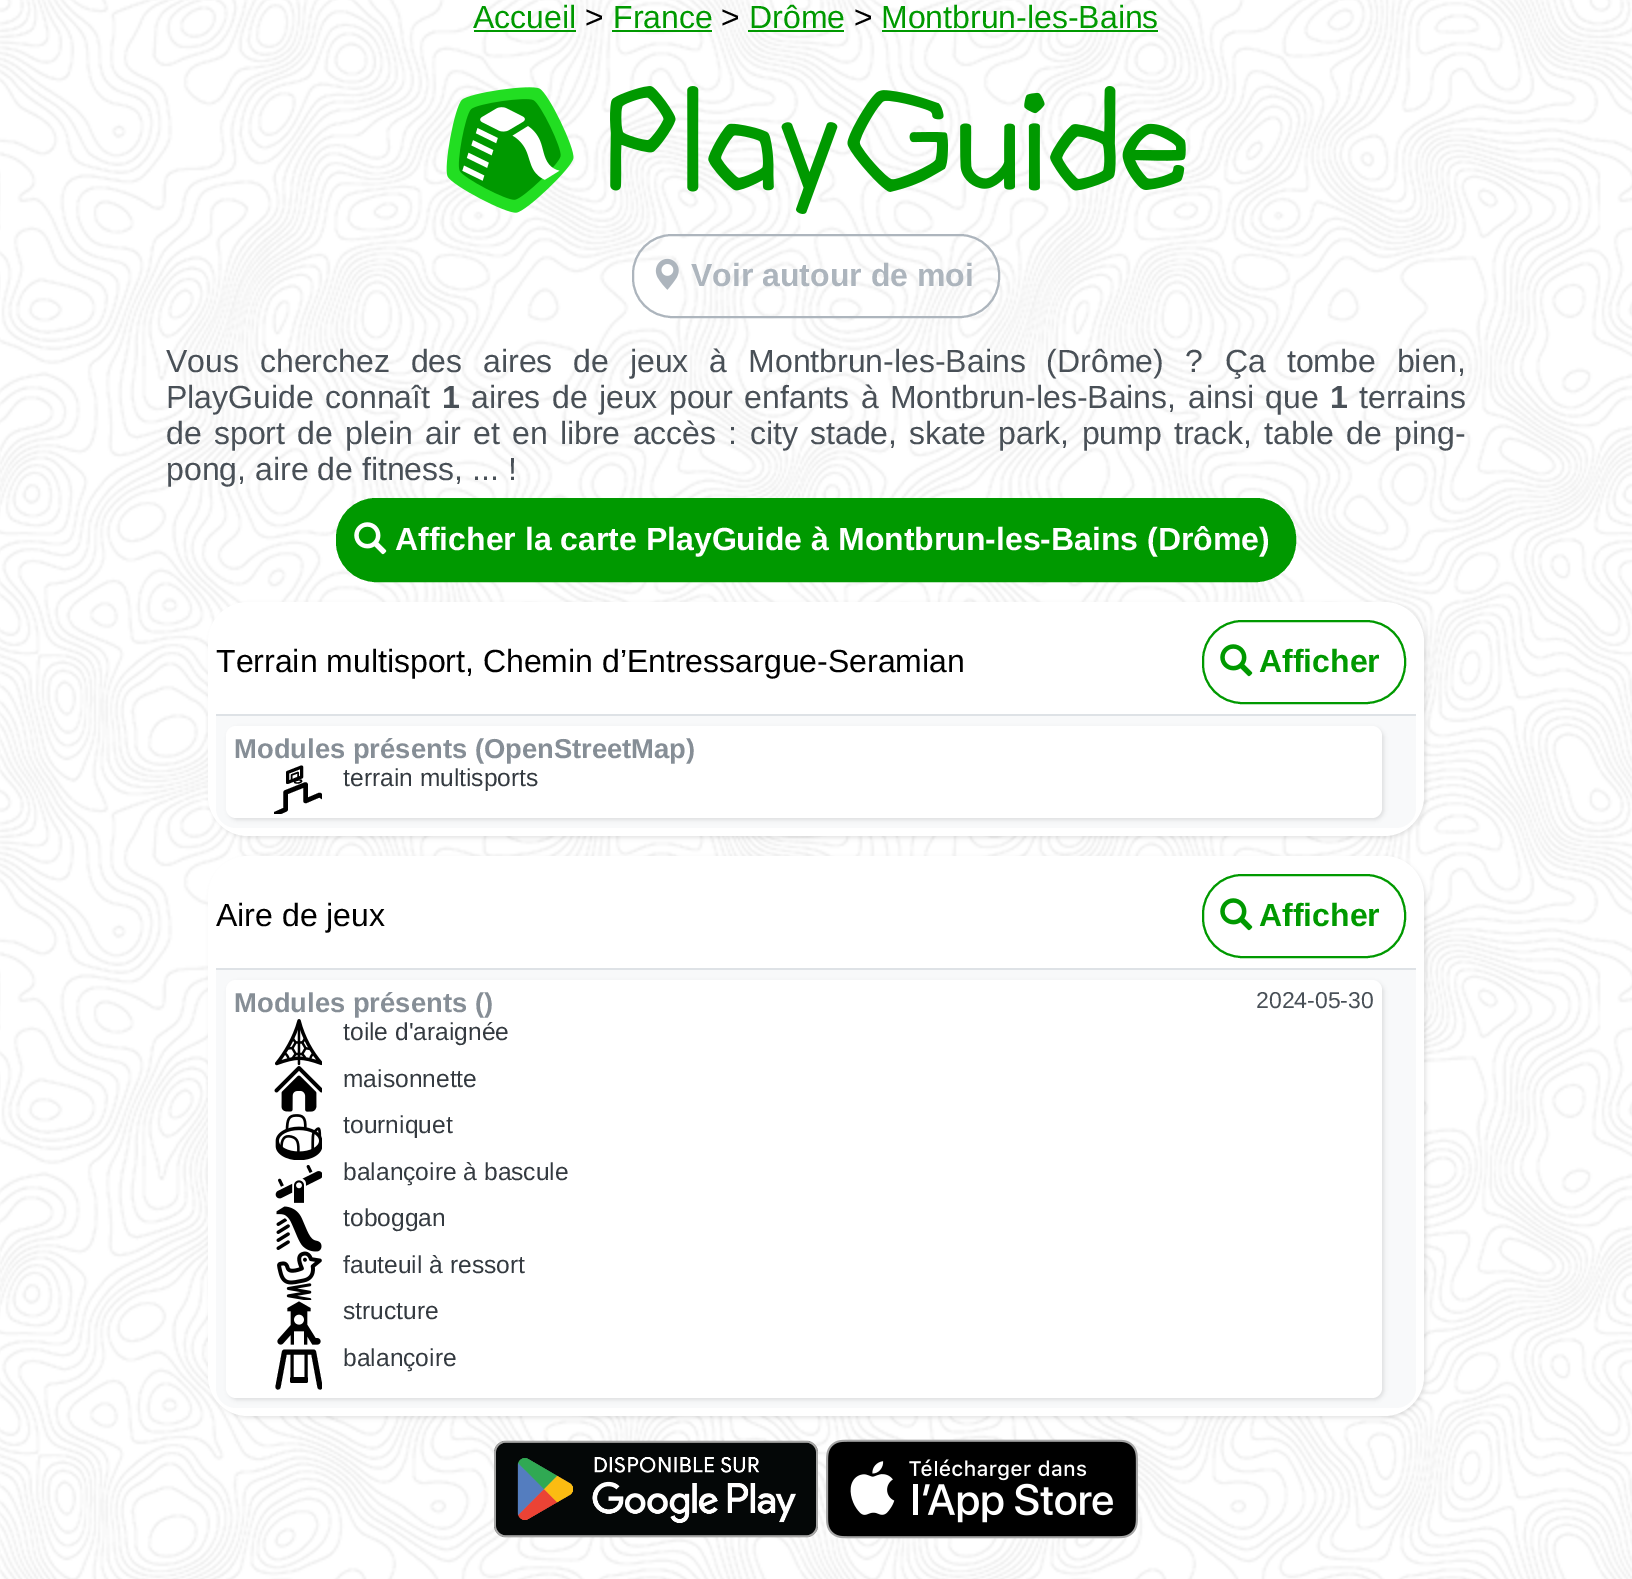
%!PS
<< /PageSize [1632 1579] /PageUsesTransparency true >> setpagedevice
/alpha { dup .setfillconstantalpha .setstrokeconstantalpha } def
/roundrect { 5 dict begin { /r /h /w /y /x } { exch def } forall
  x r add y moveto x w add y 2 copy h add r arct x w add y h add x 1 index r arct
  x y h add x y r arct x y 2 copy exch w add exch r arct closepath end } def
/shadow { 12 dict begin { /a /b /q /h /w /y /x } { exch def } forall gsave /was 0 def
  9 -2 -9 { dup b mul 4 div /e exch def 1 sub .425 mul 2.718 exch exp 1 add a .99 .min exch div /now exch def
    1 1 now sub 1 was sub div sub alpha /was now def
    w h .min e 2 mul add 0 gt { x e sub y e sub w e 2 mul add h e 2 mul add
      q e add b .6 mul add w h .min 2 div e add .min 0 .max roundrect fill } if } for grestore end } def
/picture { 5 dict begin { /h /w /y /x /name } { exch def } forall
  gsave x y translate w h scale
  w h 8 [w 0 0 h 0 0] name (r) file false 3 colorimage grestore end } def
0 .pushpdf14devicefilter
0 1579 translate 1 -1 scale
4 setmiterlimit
1 setgray
0 0 1632 1579 rectfill
(img1.rgb) 0 0 1632 1579 picture
/LiberationSans-Regular [32 0 0 -32 0 0] selectfont
0 0.6 0 setrgbcolor
473 28 moveto (Accueil) show
474 30 102 2 rectfill
0 setgray
585 28 moveto (>) show
0 0.6 0 setrgbcolor
613 28 moveto (France) show
612 30 100 2 rectfill
0 setgray
721 28 moveto (>) show
0 0.6 0 setrgbcolor
749 28 moveto (Drôme) show
748 30 96 2 rectfill
0 setgray
854 28 moveto (>) show
0 0.6 0 setrgbcolor
881 28 moveto (Montbrun-les-Bains) show
882 30 276 2 rectfill
(img2.rgb) 446 87 128 126 picture
(img3.rgb) 610 86 576 128 picture
0.678 0.71 0.741 setrgbcolor
2 setlinewidth
633 235 366 82 39 roundrect stroke
(img4.rgb) 655 258 24 32 picture
/LiberationSans-Bold [32 0 0 -32 0 0] selectfont
691 286 moveto (Voir autour de moi) show
/LiberationSans-Regular [32 0 0 -32 0 0] selectfont
0.286 0.314 0.341 setrgbcolor
166 372 moveto 12 0 32 (Vous cherchez des aires de jeux à Montbrun-les-Bains \(Drôme\) ?) widthshow
1225 372 moveto 12 0 32 (Ça tombe bien,) widthshow
166 408 moveto 2.5 0 32 (PlayGuide connaît) widthshow
/LiberationSans-Bold [32 0 0 -32 0 0] selectfont
442 408 moveto (1) show
/LiberationSans-Regular [32 0 0 -32 0 0] selectfont
471 408 moveto 2.5 0 32 (aires de jeux pour enfants à Montbrun-les-Bains,) widthshow
1188 408 moveto 2.5 0 32 (ainsi que) widthshow
/LiberationSans-Bold [32 0 0 -32 0 0] selectfont
1330 408 moveto (1) show
/LiberationSans-Regular [32 0 0 -32 0 0] selectfont
1359 408 moveto (terrains) show
166 444 moveto 3.4 0 32 (de sport de plein air et en libre accès : city stade, skate park, pump track, table de ping-) widthshow
166 480 moveto (pong, aire de fitness, ... !) show
0 0.6 0 setrgbcolor
337 499 958 82 39 roundrect gsave fill grestore
stroke
(img5.rgb) 354 522 33 33 picture
/LiberationSans-Bold [32 0 0 -32 0 0] selectfont
1 setgray
395 550 moveto (Afficher la carte PlayGuide à Montbrun-les-Bains \(Drôme\)) show
0 setgray
210 604 1216 234 40 2 0.1 shadow
1 setgray
208 602 1216 234 40 roundrect fill
/LiberationSans-Regular [32 0 0 -32 0 0] selectfont
0 setgray
216 672 moveto (Terrain multisport, Chemin d’Entressargue-Seramian) show
0 0.6 0 setrgbcolor
1203 621 202 82 39 roundrect stroke
(img6.rgb) 1220 644 33 33 picture
/LiberationSans-Bold [32 0 0 -32 0 0] selectfont
1259 672 moveto (Afficher) show
0.973 0.976 0.98 setrgbcolor
newpath 216 714 moveto 1416 714 lineto 1416 808 lineto 1416 819 1407 828 1396 828 curveto 236 828 lineto 225 828 216 819 216 808 curveto closepath fill
0.871 0.886 0.902 setrgbcolor
216 714 1200 2 rectfill
0 setgray
228 728 1156 92 10 2 0.1 shadow
1 setgray
226 726 1156 92 10 roundrect fill
/LiberationSans-Bold [27.4 0 0 -27.4 0 0] selectfont
0.525 0.557 0.588 setrgbcolor
234 758 moveto (Modules présents \(OpenStreetMap\)) show
gsave
274 764 48 50 rectclip
0 setgray
4.5 setlinewidth
1 setlinecap
1 setlinejoin
newpath 272 815.5 moveto 285.5 809.5 lineto 285.5 792.5 lineto 305.5 784.5 lineto 305.5 801 lineto 319.5 795 lineto 328.5 800.5 lineto stroke
grestore
0 setgray
3 setlinewidth
1 setlinecap
1 setlinejoin
newpath 287.5 772.5 moveto 301.5 767 lineto 301.5 777 lineto 287.5 782.5 lineto closepath stroke
1.5 setlinewidth
newpath 291.5 780 moveto 291.5 775 lineto 298 772.5 lineto 298 778 lineto stroke
1.3 setlinewidth
newpath 299 780 moveto 304 780 301 783 297.5 783 curveto 292 783 295 780 299 780 curveto closepath stroke
/LiberationSans-Regular [24.6 0 0 -24.6 0 0] selectfont
0.204 0.227 0.251 setrgbcolor
343 786 moveto (terrain multisports) show
0 setgray
210 858 1216 560 40 2 0.1 shadow
1 setgray
208 856 1216 560 40 roundrect fill
/LiberationSans-Regular [32 0 0 -32 0 0] selectfont
0 setgray
216 926 moveto (Aire de jeux) show
0 0.6 0 setrgbcolor
2 setlinewidth
0 setlinecap
0 setlinejoin
1203 875 202 82 39 roundrect stroke
(img6.rgb) 1220 898 33 33 picture
/LiberationSans-Bold [32 0 0 -32 0 0] selectfont
1259 926 moveto (Afficher) show
0.973 0.976 0.98 setrgbcolor
newpath 216 968 moveto 1416 968 lineto 1416 1388 lineto 1416 1399 1407 1408 1396 1408 curveto 236 1408 lineto 225 1408 216 1399 216 1388 curveto closepath fill
0.871 0.886 0.902 setrgbcolor
216 968 1200 2 rectfill
0 setgray
228 982 1156 418 10 2 0.1 shadow
1 setgray
226 980 1156 418 10 roundrect fill
/LiberationSans-Bold [27.4 0 0 -27.4 0 0] selectfont
0.525 0.557 0.588 setrgbcolor
234 1012 moveto (Modules présents \(\)) show
/LiberationSans-Regular [23 0 0 -23 0 0] selectfont
0.286 0.314 0.341 setrgbcolor
1256 1008 moveto (2024-05-30) show
(img7.rgb) 275 1019 47 47 picture
/LiberationSans-Regular [24.6 0 0 -24.6 0 0] selectfont
0.204 0.227 0.251 setrgbcolor
343 1040 moveto (toile d'araignée) show
(img8.rgb) 274 1066 48 46 picture
343 1087 moveto (maisonnette) show
(img9.rgb) 275 1114 47 46 picture
343 1133 moveto (tourniquet) show
(img10.rgb) 275 1165 47 38 picture
343 1180 moveto (balançoire à bascule) show
(img11.rgb) 276 1206 46 46 picture
343 1226 moveto (toboggan) show
(img12.rgb) 277 1251 45 49 picture
343 1273 moveto (fauteuil à ressort) show
(img13.rgb) 277 1301 44 44 picture
343 1319 moveto (structure) show
gsave
274 1344 48 50 rectclip
0 setgray
5.1 setlinewidth
1 setlinecap
1 setlinejoin
newpath 278 1387 moveto 284.5 1352 lineto 313.5 1352 lineto 320 1387 lineto stroke
grestore
0 setgray
290 1377 18 6 2 roundrect fill
3 setlinewidth
1 setlinejoin
newpath 292 1354 moveto 292 1379.5 lineto 306 1354 moveto 306 1379.5 lineto stroke
0.204 0.227 0.251 setrgbcolor
343 1366 moveto (balançoire) show
(img14.rgb) 494 1440 324 98 picture
(img15.rgb) 826 1439 312 100 picture
.poppdf14devicefilter showpage
